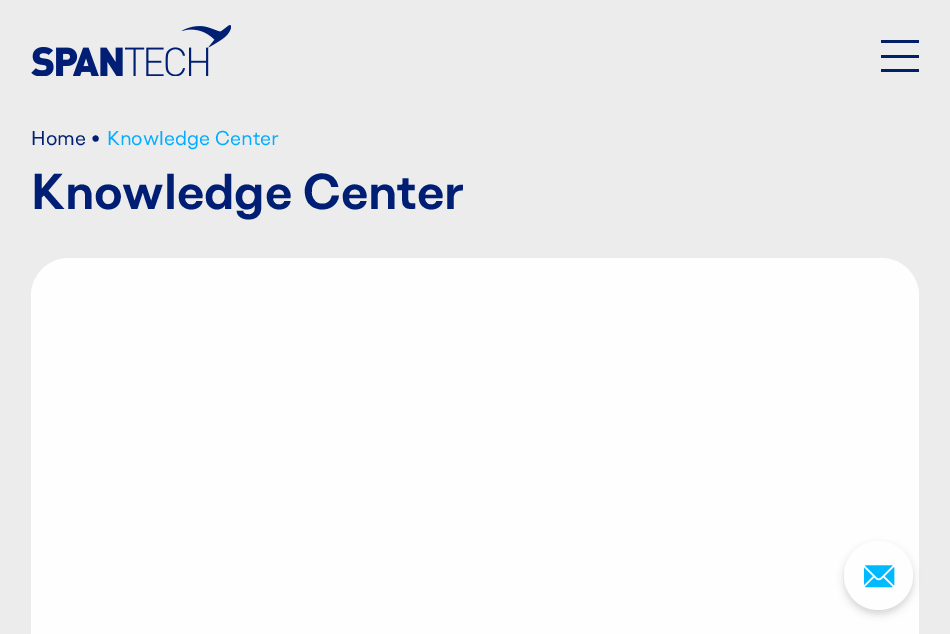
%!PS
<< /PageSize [950 634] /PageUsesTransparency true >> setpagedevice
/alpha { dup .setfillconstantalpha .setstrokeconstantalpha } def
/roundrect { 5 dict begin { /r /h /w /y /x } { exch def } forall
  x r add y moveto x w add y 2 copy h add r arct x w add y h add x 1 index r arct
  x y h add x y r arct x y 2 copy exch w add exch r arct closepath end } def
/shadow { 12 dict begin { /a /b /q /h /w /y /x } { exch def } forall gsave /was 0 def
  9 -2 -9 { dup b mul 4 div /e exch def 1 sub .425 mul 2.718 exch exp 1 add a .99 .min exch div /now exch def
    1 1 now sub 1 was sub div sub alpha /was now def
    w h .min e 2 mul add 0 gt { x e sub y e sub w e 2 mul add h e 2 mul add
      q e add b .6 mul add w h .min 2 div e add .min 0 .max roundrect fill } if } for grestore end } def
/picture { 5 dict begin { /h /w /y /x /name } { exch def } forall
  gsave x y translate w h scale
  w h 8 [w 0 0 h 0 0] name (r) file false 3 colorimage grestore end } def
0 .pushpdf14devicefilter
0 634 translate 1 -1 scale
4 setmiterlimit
0.925 setgray
0 0 950 634 rectfill
(img1.rgb) 31 25 200 51 picture
0.008 0.125 0.4 setrgbcolor
881 40 38 3 rectfill
881 55 38 3 rectfill
881 69 38 3 rectfill
/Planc-Regular [20 0 0 -20 0 0] selectfont
0 0.122 0.455 setrgbcolor
31 145 moveto (Home •) show
0.008 0.678 1 setrgbcolor
107 145 moveto (Knowledge Center) show
/Planc-Bold [50 0 0 -50 0 0] selectfont
0 0.122 0.455 setrgbcolor
31 209 moveto (Knowledge Center) show
1 0.996 1 setrgbcolor
31 258 888 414 38 roundrect fill
0 setgray
844 545 69 69 34.5 4 0.16 shadow
1 0.996 1 setrgbcolor
newpath 878.5 575.5 34.5 0 360 arc closepath fill
(img2.rgb) 864 565 31 23 picture
.poppdf14devicefilter showpage
